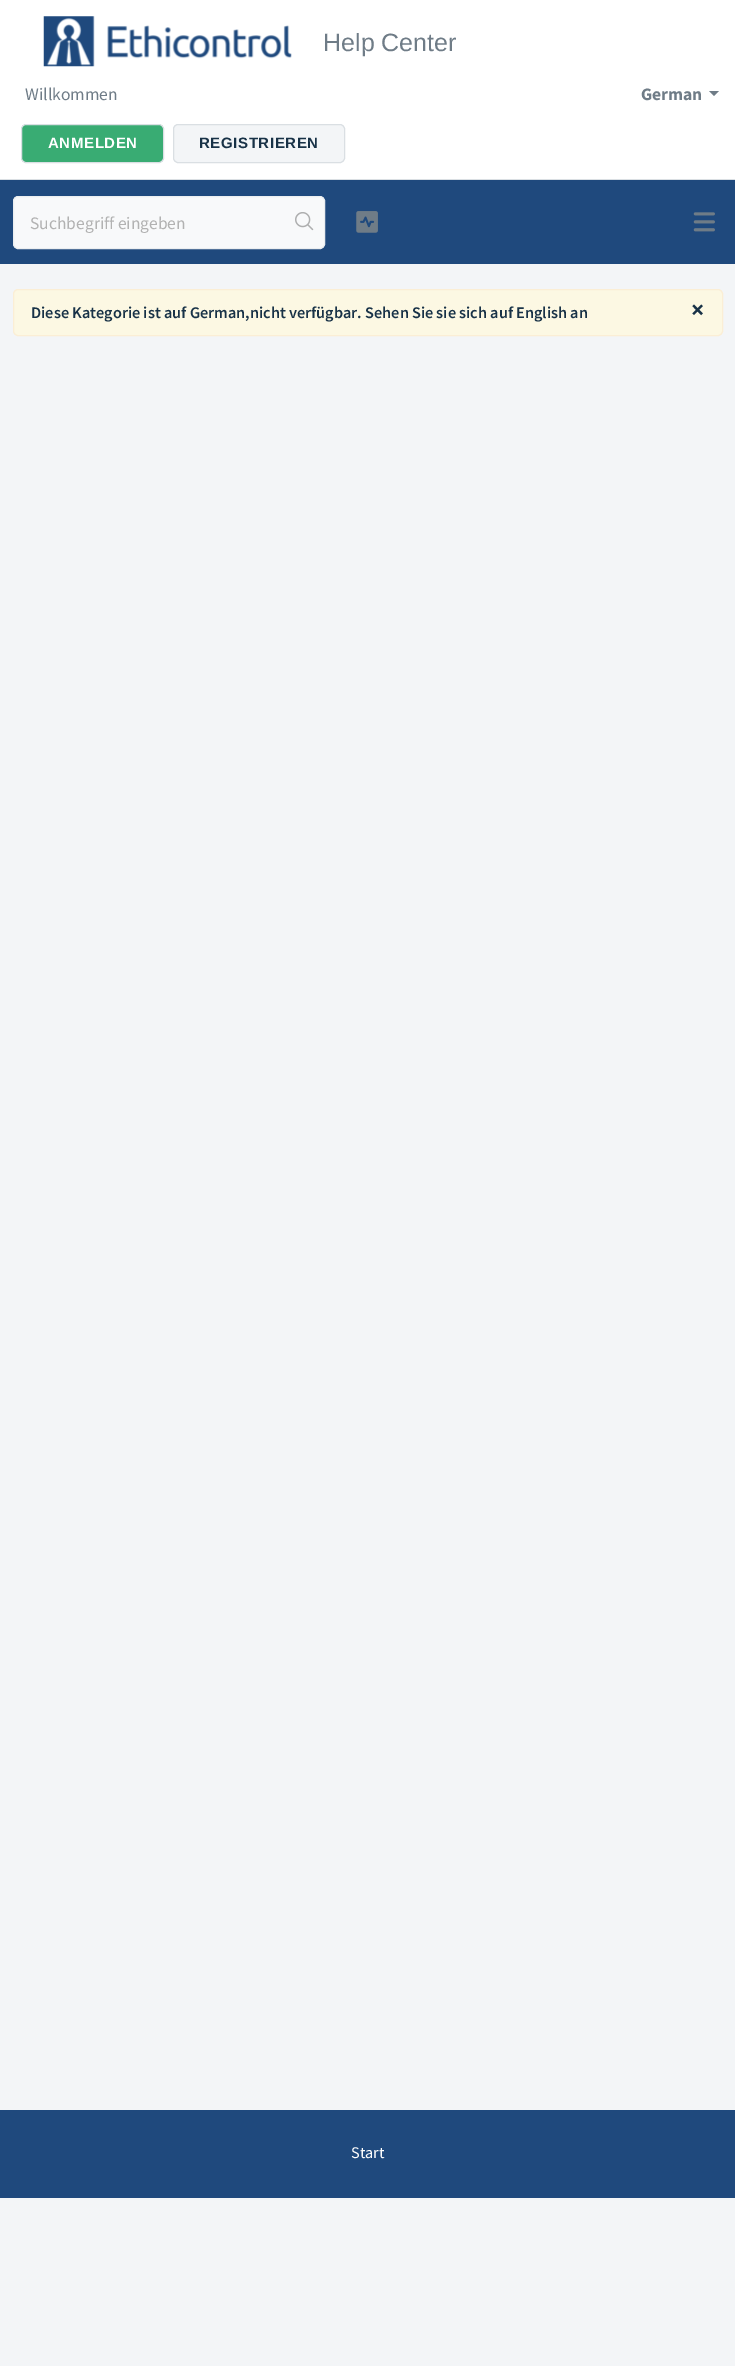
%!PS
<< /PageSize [735 2366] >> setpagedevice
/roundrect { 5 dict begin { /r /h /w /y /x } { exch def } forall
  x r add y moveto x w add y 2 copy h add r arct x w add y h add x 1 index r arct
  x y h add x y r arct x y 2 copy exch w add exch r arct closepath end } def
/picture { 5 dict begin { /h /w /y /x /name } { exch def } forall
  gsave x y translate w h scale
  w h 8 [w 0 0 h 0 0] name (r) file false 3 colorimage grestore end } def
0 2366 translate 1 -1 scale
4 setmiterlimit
0.953 0.961 0.969 setrgbcolor
0 0 735 2366 rectfill
1 setgray
0 0 735 179 rectfill
0.855 0.875 0.89 setrgbcolor
0 179 735 1 rectfill
(img1.rgb) 43 16 249 51 picture
/LiberationSans-Regular [25 0 0 -25 0 0] selectfont
0.435 0.486 0.529 setrgbcolor
323 51 moveto (Help Center) show
/SourceSansPro-Regular [17.5 0 0 -17.5 0 0] selectfont
25 100 moveto (Willkommen) show
/SourceSansPro-Bold [17.5 0 0 -17.5 0 0] selectfont
641 100 moveto (German) show
newpath 709 91 moveto 719 91 lineto 714 96 lineto closepath fill
0.224 0.675 0.451 setrgbcolor
21.5 124.5 142 38 4.5 roundrect gsave fill grestore
0.855 0.875 0.89 setrgbcolor
stroke
/LiberationSans-Bold [15 0 0 -15 0 0] selectfont
1 setgray
48 148 moveto 0.6 0 (ANMELDEN) ashow
0.953 0.961 0.969 setrgbcolor
173.5 124.5 171 38 4.5 roundrect gsave fill grestore
0.855 0.875 0.89 setrgbcolor
stroke
0.094 0.196 0.278 setrgbcolor
199 148 moveto 0.6 0 (REGISTRIEREN) ashow
0.122 0.286 0.49 setrgbcolor
0 180 735 84 rectfill
(img2.rgb) 693 212 22 20 picture
0.973 0.976 0.98 setrgbcolor
13.5 196.5 311 52 4.5 roundrect gsave fill grestore
0.922 0.933 0.941 setrgbcolor
stroke
/SourceSansPro-Regular [17.5 0 0 -17.5 0 0] selectfont
0.698 setgray
30 229 moveto (Suchbegriff eingeben) show
(img3.rgb) 295 212 19 19 picture
(img4.rgb) 356 211 22 22 picture
0.988 0.973 0.89 setrgbcolor
13.5 289.5 709 46 4.5 roundrect gsave fill grestore
0.984 0.933 0.835 setrgbcolor
stroke
/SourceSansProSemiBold-SemiBold [16.25 0 0 -16.25 0 0] selectfont
0.094 0.196 0.278 setrgbcolor
31 318 moveto (Diese Kategorie ist auf German,nicht verfügbar. Sehen Sie sie sich auf English an) show
/SourceSansPro-Bold [25 0 0 -25 0 0] selectfont
691 318 moveto (×) show
0.122 0.286 0.49 setrgbcolor
0 2110 735 88 rectfill
/SourceSansPro-Regular [16.25 0 0 -16.25 0 0] selectfont
1 setgray
351 2158 moveto (Start) show
showpage
